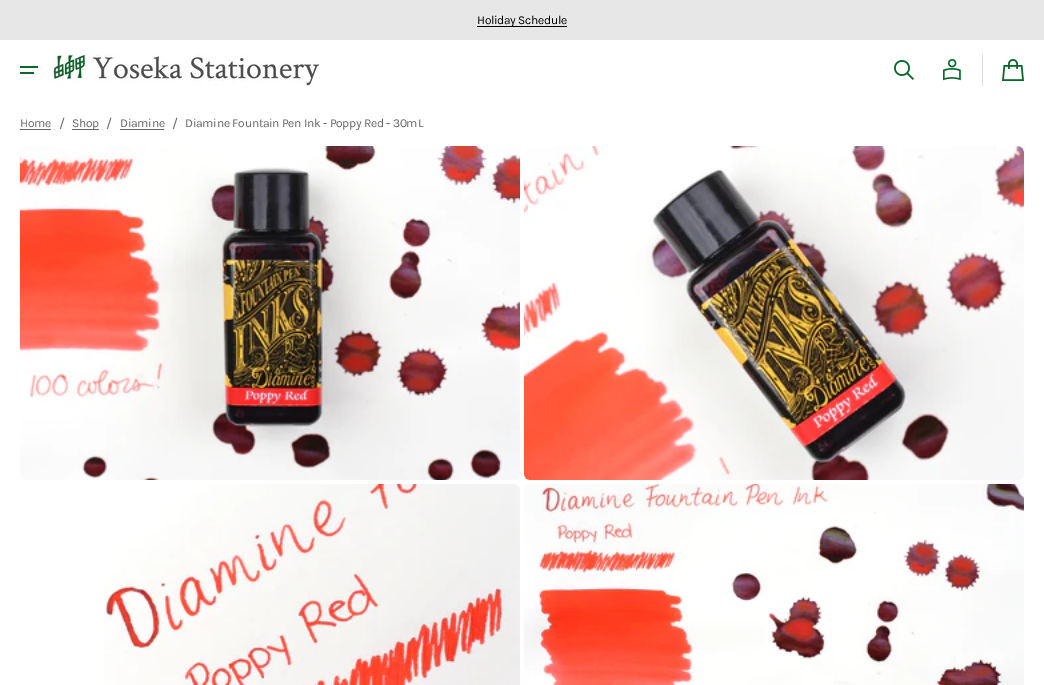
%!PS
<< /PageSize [1044 685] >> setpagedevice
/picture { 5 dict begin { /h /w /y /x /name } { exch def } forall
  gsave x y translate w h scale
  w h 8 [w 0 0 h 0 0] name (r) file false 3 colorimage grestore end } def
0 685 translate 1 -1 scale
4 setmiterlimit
1 setgray
0 0 1044 685 rectfill
0.906 setgray
0 0 1044 40 rectfill
0 setgray
477 26 90 1 rectfill
/Karla-Regular [12 0 0 -12 0 0] selectfont
477 24 moveto -0.3 0 (Holiday Schedule) ashow
0.035 0.412 0.165 setrgbcolor
20 66 18 2 rectfill
20 72 14 2 rectfill
(img1.rgb) 51 54 269 32 picture
(img2.rgb) 894 60 20 20 picture
(img3.rgb) 943 59 18 22 picture
0.871 setgray
982 54 1 32 rectfill
(img4.rgb) 1002 59 22 22 picture
/Karla-Regular [12.1 0 0 -12.1 0 0] selectfont
0.4 setgray
20 127 moveto -0.3 0 (Home) ashow
20 129 31 1 rectfill
/Karla-Regular [14 0 0 -14 0 0] selectfont
59 128 moveto (/) show
72 129 27 1 rectfill
/Karla-Regular [12.1 0 0 -12.1 0 0] selectfont
72 127 moveto -0.3 0 (Shop) ashow
/Karla-Regular [14 0 0 -14 0 0] selectfont
106 128 moveto (/) show
/Karla-Regular [12.1 0 0 -12.1 0 0] selectfont
120 127 moveto -0.3 0 (Diamine) ashow
120 129 44 1 rectfill
/Karla-Regular [14 0 0 -14 0 0] selectfont
172 128 moveto (/) show
/Karla-Regular [12.1 0 0 -12.1 0 0] selectfont
185 127 moveto -0.3 0 (Diamine Fountain Pen Ink - Poppy Red - 30mL) ashow
(img5.rgb) 20 146 500 334 picture
(img6.rgb) 524 146 500 334 picture
(img7.rgb) 104 484 416 201 picture
(img8.rgb) 524 484 500 201 picture
showpage
